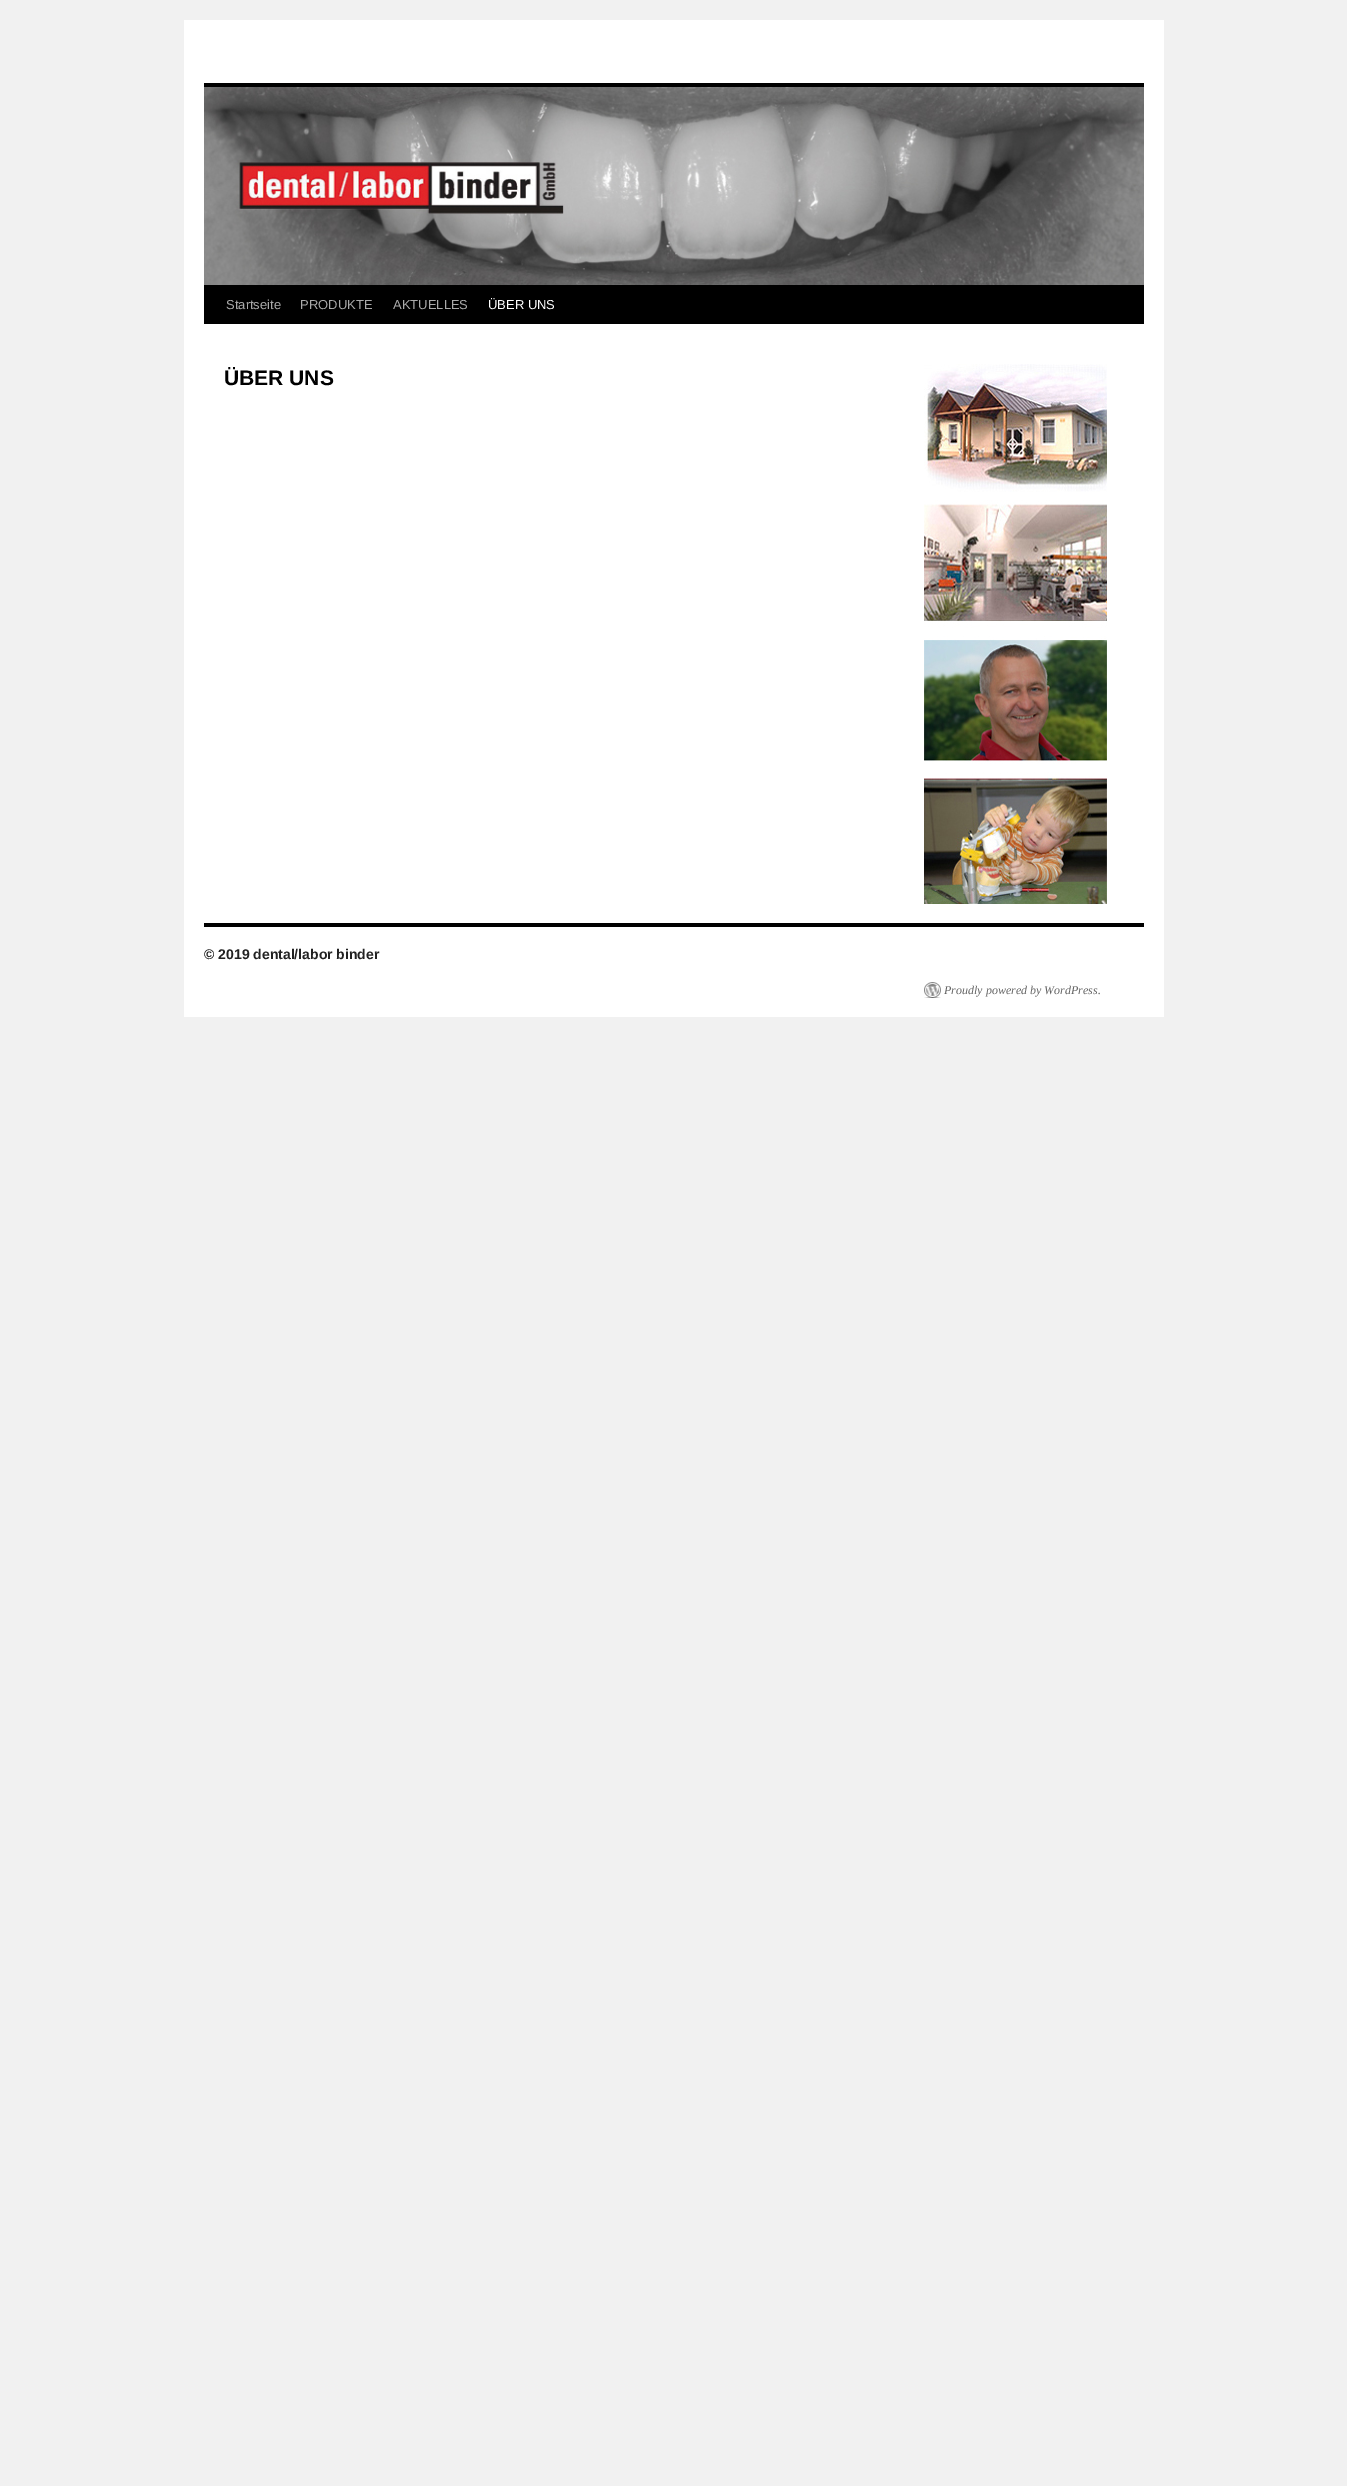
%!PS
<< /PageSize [1347 2486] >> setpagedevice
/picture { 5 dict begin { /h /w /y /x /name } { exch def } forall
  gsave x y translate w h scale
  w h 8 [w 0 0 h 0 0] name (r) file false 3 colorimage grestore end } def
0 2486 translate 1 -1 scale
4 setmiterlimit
0.945 setgray
0 0 1347 2486 rectfill
1 setgray
184 20 980 997 rectfill
0 setgray
204 83 940 4 rectfill
204 285 940 39 rectfill
(img1.rgb) 204 87 940 198 picture
/LiberationSans-Regular [13 0 0 -13 0 0] selectfont
0.667 setgray
226 309 moveto (Startseite) show
300 309 moveto (PRODUKTE) show
393 309 moveto (AKTUELLES) show
1 setgray
488 309 moveto (ÜBER UNS) show
/LiberationSans-Bold [21 0 0 -21 0 0] selectfont
0 setgray
224 385 moveto (ÜBER UNS) show
(img2.rgb) 924 364 183 540 picture
204 923 940 4 rectfill
gsave
204 945 940 36 rectclip
/LiberationSans-Bold [14 0 0 -14 0 0] selectfont
0.133 setgray
204 959 moveto (© 2019 dental/labor binder) show
grestore
(img3.rgb) 924 982 17 16 picture
/LiberationSerif-Italic [12 0 0 -12 0 0] selectfont
0.4 setgray
944 994 moveto (Proudly powered by WordPress.) show
showpage
